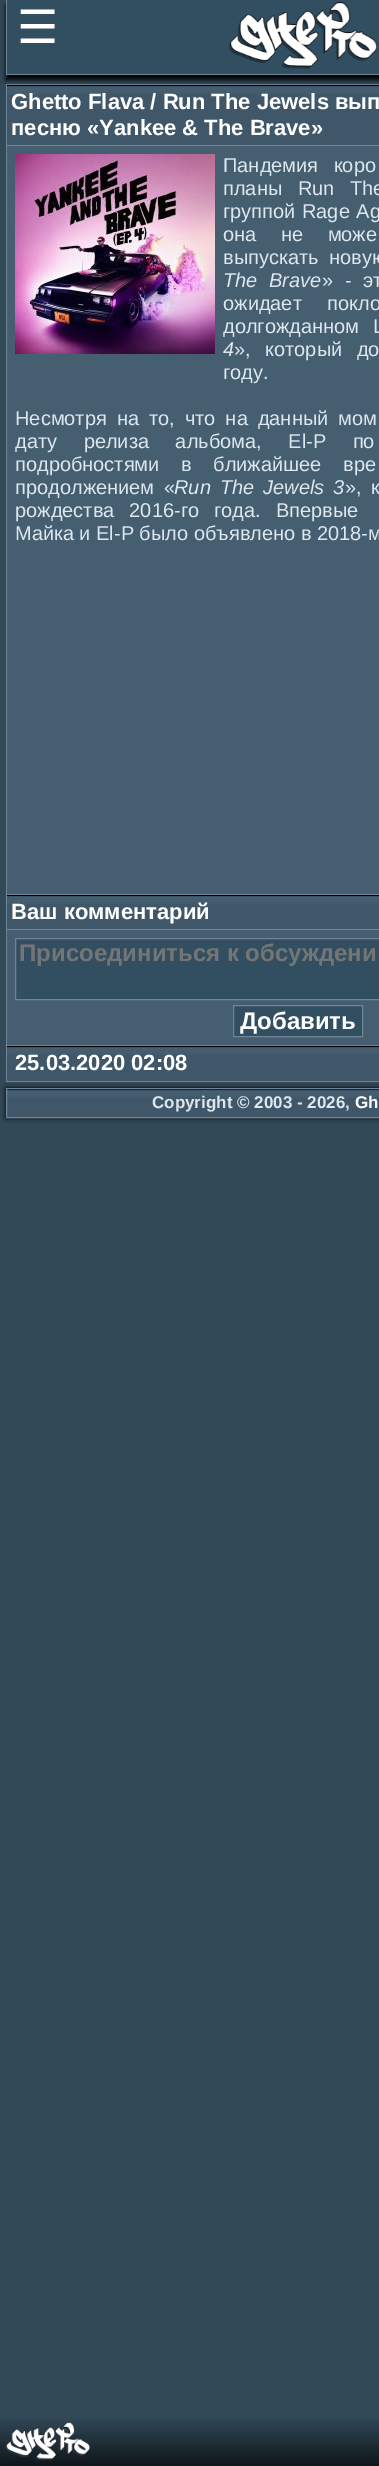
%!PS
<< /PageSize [379 2466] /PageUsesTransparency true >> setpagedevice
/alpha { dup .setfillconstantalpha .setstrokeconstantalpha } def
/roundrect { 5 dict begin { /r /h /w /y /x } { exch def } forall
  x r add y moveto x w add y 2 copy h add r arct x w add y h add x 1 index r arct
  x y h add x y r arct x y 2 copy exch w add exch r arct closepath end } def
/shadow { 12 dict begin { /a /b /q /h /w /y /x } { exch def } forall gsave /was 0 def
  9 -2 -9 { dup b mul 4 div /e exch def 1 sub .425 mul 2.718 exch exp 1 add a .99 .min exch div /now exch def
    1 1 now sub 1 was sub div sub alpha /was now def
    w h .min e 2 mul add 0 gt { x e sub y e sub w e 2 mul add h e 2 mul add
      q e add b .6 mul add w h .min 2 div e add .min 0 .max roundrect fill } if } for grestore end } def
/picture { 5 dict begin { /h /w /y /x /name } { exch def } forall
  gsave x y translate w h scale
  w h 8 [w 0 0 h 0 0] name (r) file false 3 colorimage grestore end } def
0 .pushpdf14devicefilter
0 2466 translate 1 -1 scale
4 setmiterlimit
0.196 0.286 0.345 setrgbcolor
0 0 379 2466 rectfill
0 setgray
6 1088 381 30 0 2.5 1 shadow
0.439 0.518 0.596 setrgbcolor
6 1081 373 1 rectfill
6 84 1 998 rectfill
(img2.rgb) 7 85 372 9 picture
7 84 372 1 rectfill
0 setgray
6 5 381 75 0 2.5 1 shadow
0.196 0.306 0.38 setrgbcolor
7 0 372 74 rectfill
0.439 0.518 0.596 setrgbcolor
6 74 373 1 rectfill
6 0 1 75 rectfill
/DejaVuSans-Regular [46 0 0 -46 0 0] selectfont
1 setgray
17 43 moveto (☰) show
(img1.rgb) 229 2 148 67 picture
0.271 0.369 0.439 setrgbcolor
7 146 372 899 rectfill
0.247 0.341 0.408 setrgbcolor
7 94 372 51 rectfill
0.439 0.518 0.596 setrgbcolor
7 145 372 1 rectfill
/LiberationSans-Bold [22 0 0 -22 0 0] selectfont
1 setgray
11 109 moveto (Ghetto Flava / Run The Jewels вып) show
11 135 moveto (песню «Yankee & The Brave») show
(img3.rgb) 15 154 200 200 picture
/LiberationSans-Regular [20 0 0 -20 0 0] selectfont
0.863 0.906 0.937 setrgbcolor
223 172 moveto 10 0 32 (Пандемия коро) widthshow
223 195 moveto 10 0 32 (планы Run The) widthshow
223 218 moveto 1 0 32 (группой Rage Ag) widthshow
223 241 moveto 19 0 32 (она не може) widthshow
223 264 moveto 5 0 32 (выпускать новую) widthshow
/LiberationSans-Italic [20 0 0 -20 0 0] selectfont
223 287 moveto 6 0 32 (The Brave) widthshow
/LiberationSans-Regular [20 0 0 -20 0 0] selectfont
322 287 moveto 6 0 32 (» - эт) widthshow
223 310 moveto 20 0 32 (ожидает покло) widthshow
223 333 moveto 8 0 32 (долгожданном L) widthshow
/LiberationSans-Italic [20 0 0 -20 0 0] selectfont
223 356 moveto (4) show
/LiberationSans-Regular [20 0 0 -20 0 0] selectfont
234 356 moveto 9 0 32 (», который до) widthshow
223 379 moveto (году.) show
15 425 moveto 4.5 0 32 (Несмотря на то, что на данный мом) widthshow
15 448 moveto 21 0 32 (дату релиза альбома, El-P по) widthshow
15 471 moveto 16 0 32 (подробностями в ближайшее вре) widthshow
15 494 moveto 4 0 32 (продолжением «) widthshow
/LiberationSans-Italic [20 0 0 -20 0 0] selectfont
174 494 moveto 3.5 0 32 (Run The Jewels 3) widthshow
/LiberationSans-Regular [20 0 0 -20 0 0] selectfont
345 494 moveto 4 0 32 (», к) widthshow
15 517 moveto 9.5 0 32 (рождества 2016-го года. Впервые) widthshow
15 540 moveto (Майка и El-P было объявлено в 2018-м) show
0.247 0.341 0.408 setrgbcolor
7 904 372 25 rectfill
(img2.rgb) 7 895 372 9 picture
0.439 0.518 0.596 setrgbcolor
7 894 372 1 rectfill
7 929 372 1 rectfill
/LiberationSans-Bold [22 0 0 -22 0 0] selectfont
1 setgray
11 919 moveto (Ваш комментарий) show
0.196 0.306 0.38 setrgbcolor
newpath 15.5 938.5 moveto 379.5 938.5 lineto 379.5 999.5 lineto 15.5 999.5 lineto closepath gsave fill grestore
0.439 0.518 0.596 setrgbcolor
stroke
/LiberationSans-Bold [24 0 0 -24 0 0] selectfont
0.459 setgray
19 961 moveto (Присоединиться к обсуждени) show
0.196 0.306 0.38 setrgbcolor
newpath 233.5 1005.5 moveto 362.5 1005.5 lineto 362.5 1036.5 lineto 233.5 1036.5 lineto closepath gsave fill grestore
0.439 0.518 0.596 setrgbcolor
stroke
1 setgray
240 1029 moveto (Добавить) show
0.439 0.518 0.596 setrgbcolor
7 1045 372 1 rectfill
0.247 0.341 0.408 setrgbcolor
7 1055 372 26 rectfill
(img2.rgb) 7 1046 372 9 picture
/LiberationSans-Bold [22 0 0 -22 0 0] selectfont
1 setgray
15 1070 moveto (25.03.2020 02:08) show
0.247 0.341 0.408 setrgbcolor
7 1098 372 19 rectfill
(img2.rgb) 7 1089 372 9 picture
0.439 0.518 0.596 setrgbcolor
6.5 1088.5 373 29 rectstroke
/LiberationSans-Bold [17 0 0 -17 0 0] selectfont
0.863 0.906 0.937 setrgbcolor
152 1108 moveto (Copyright © 2003 - 2026,) show
1 setgray
355 1108 moveto (Gh) show
gsave newpath 0 2418 moveto 379 2418 lineto 379 2466 lineto 0 2466 lineto closepath clip newpath
<< /ShadingType 2 /ColorSpace /DeviceRGB /Coords [190 2416 190 2466] /Extend [true true] /Function << /FunctionType 2 /Domain [0 1] /C0 [0.196 0.286 0.345] /C1 [0.059 0.086 0.102] /N 1 >> >> shfill grestore
(img4.rgb) 5 2422 85 39 picture
.poppdf14devicefilter showpage
